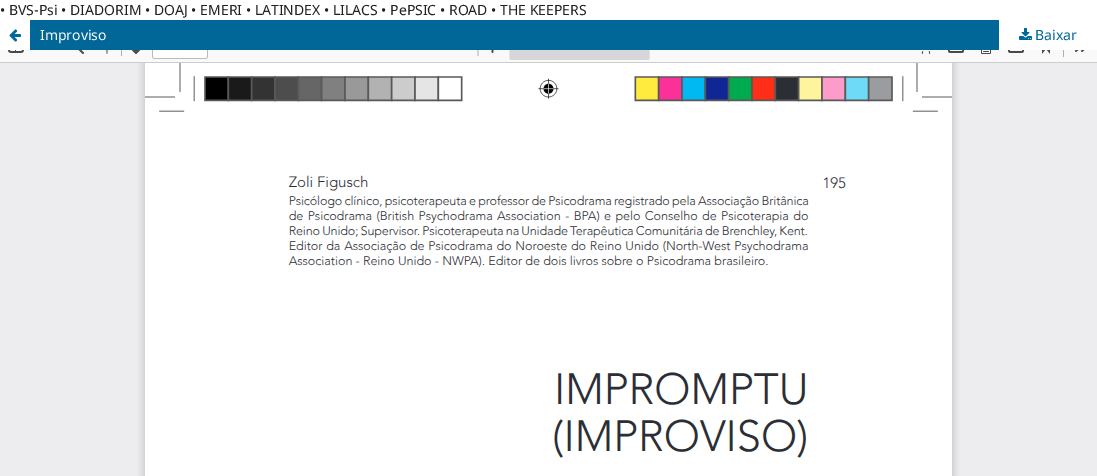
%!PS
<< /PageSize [1097 476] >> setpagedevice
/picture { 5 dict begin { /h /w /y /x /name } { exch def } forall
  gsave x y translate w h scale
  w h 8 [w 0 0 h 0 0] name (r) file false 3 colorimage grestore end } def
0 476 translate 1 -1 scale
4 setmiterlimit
1 setgray
0 0 1097 476 rectfill
/NotoSans-Regular [14 0 0 -14 0 0] selectfont
0.129 setgray
0 15 moveto (• BVS-Psi • DIADORIM • DOAJ • EMERI • LATINDEX • LILACS • PePSIC • ROAD • THE KEEPERS) show
0 0.404 0.596 setrgbcolor
30 20 969 30 rectfill
(img1.rgb) 9 29 12 13 picture
1 setgray
40 40 moveto (Improviso) show
(img2.rgb) 1019 28 13 12 picture
0 0.404 0.596 setrgbcolor
1035 40 moveto (Baixar) show
(img3.rgb) 0 50 1097 426 picture
showpage
